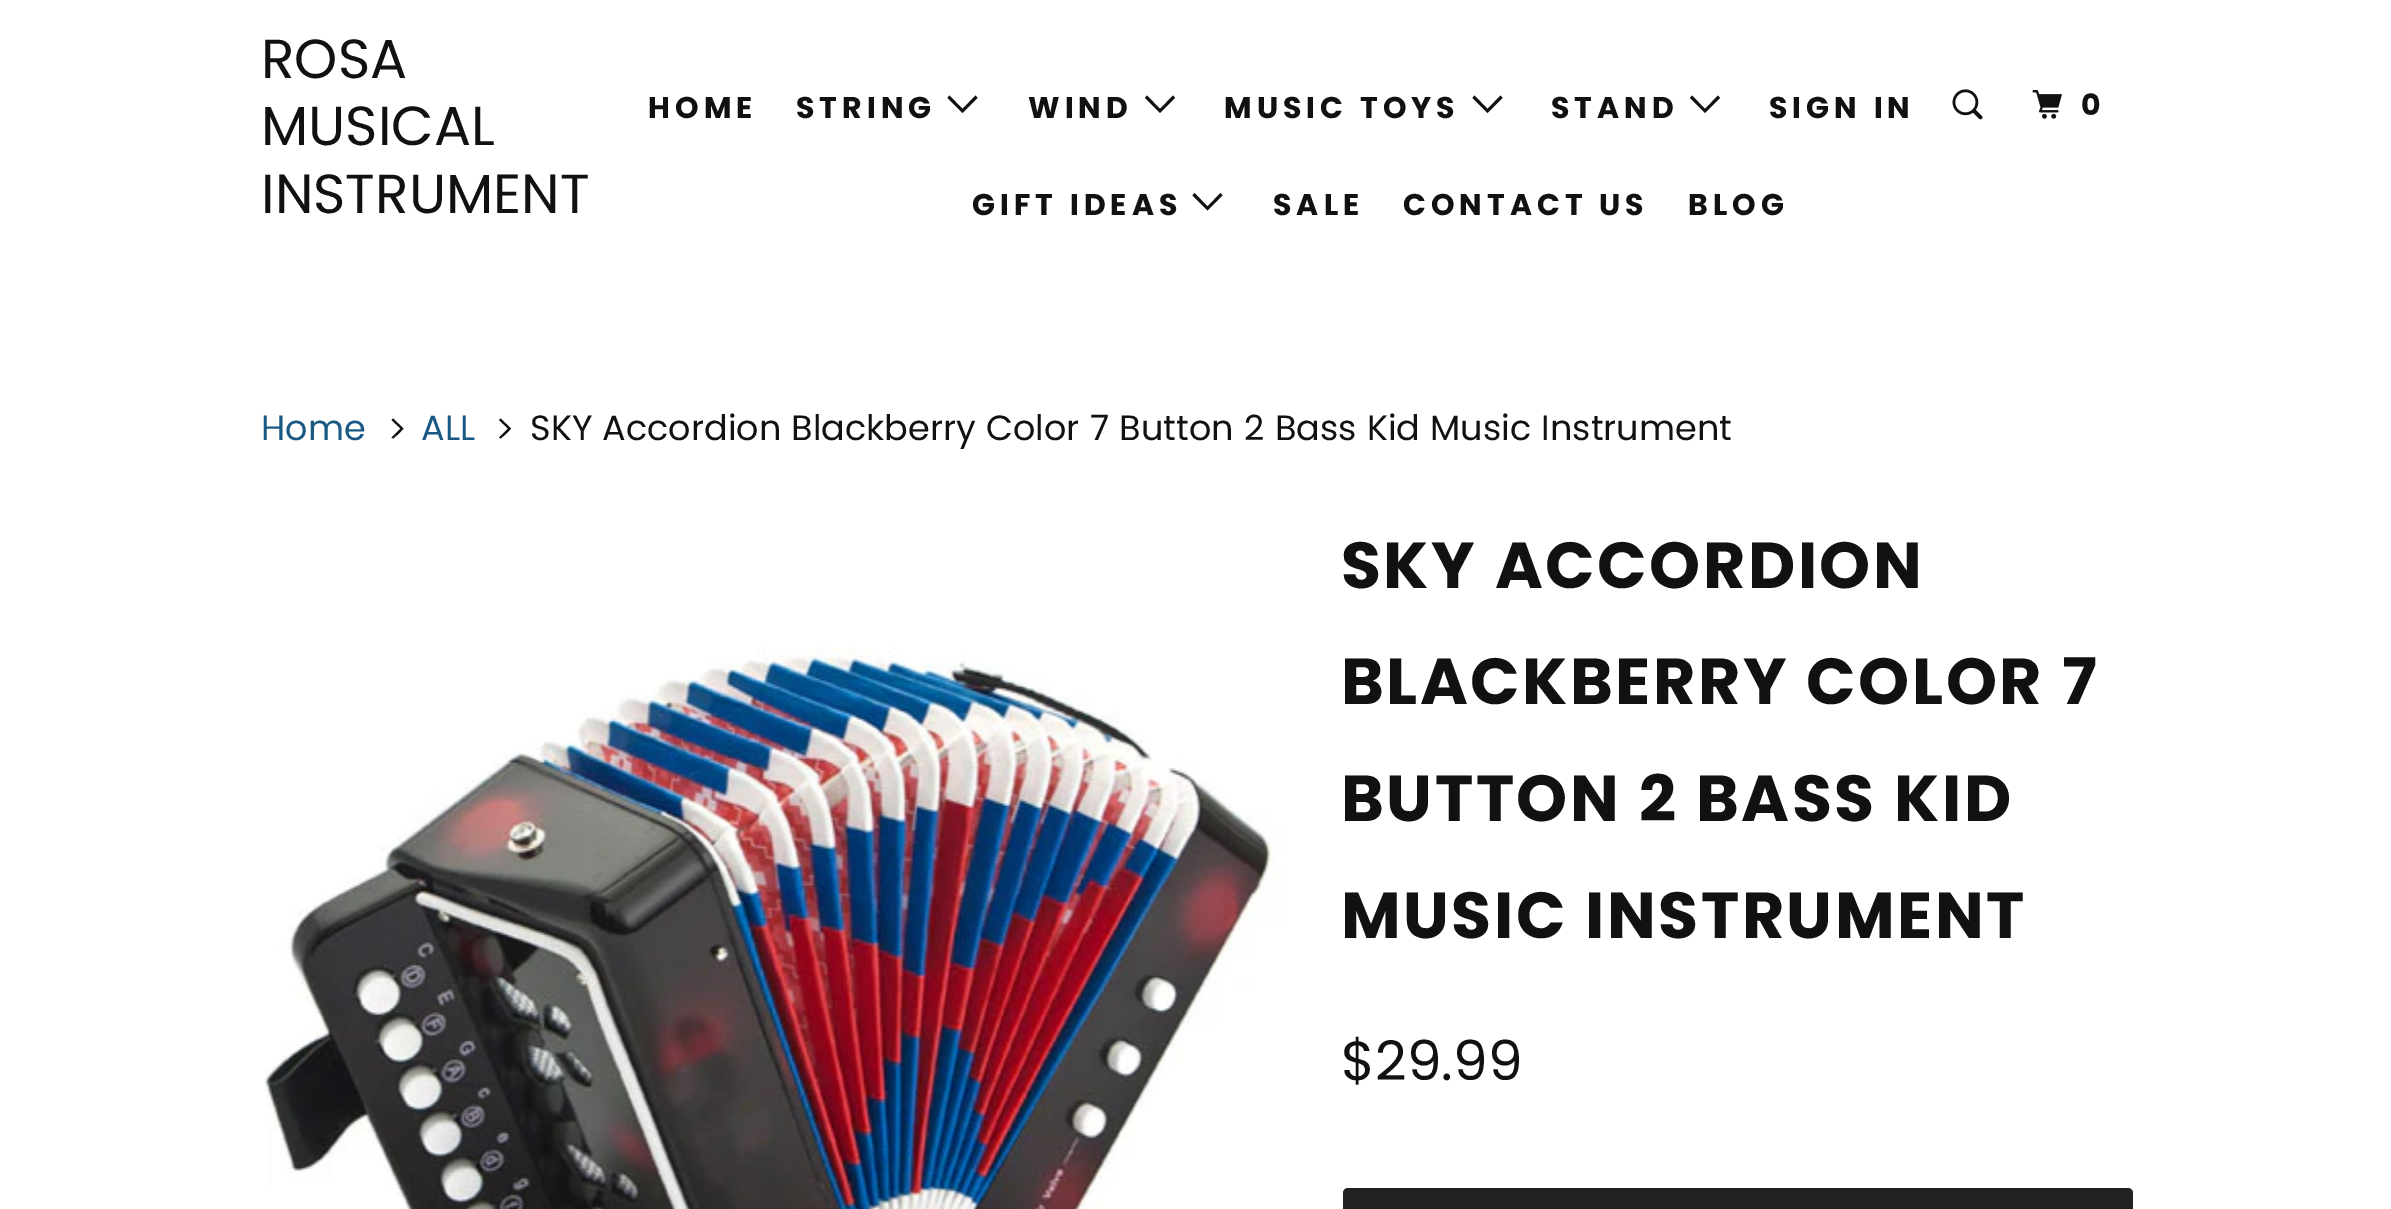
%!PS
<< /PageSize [2391 1209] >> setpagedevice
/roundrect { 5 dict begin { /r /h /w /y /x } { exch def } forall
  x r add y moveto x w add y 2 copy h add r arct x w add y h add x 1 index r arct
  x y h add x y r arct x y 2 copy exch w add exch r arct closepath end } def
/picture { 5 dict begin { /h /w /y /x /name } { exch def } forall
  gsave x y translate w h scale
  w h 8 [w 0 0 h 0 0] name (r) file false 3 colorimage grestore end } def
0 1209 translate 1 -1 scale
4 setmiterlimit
1 setgray
0 0 2391 1209 rectfill
/Poppins-Regular [55 0 0 -55 0 0] selectfont
0.067 setgray
261 78 moveto (ROSA) show
261 145 moveto (MUSICAL) show
261 213 moveto (INSTRUMENT) show
/Poppins-Bold [30 0 0 -30 0 0] selectfont
648 118 moveto 5 0 (HOME) ashow
796 118 moveto 5 0 (STRING) ashow
newpath 955 105.5 moveto 947.5 98 lineto 949.5 95.5 lineto 962.5 109 lineto 975.5 95.5 lineto 977.5 98 lineto 962.5 113 lineto closepath fill
1028 118 moveto 5 0 (WIND) ashow
newpath 1152.5 105.5 moveto 1145 98 lineto 1147 95.5 lineto 1160 109 lineto 1173 95.5 lineto 1175 98 lineto 1160 113 lineto closepath fill
1224 118 moveto 5 0 (MUSIC TOYS) ashow
newpath 1480 105.5 moveto 1472.5 98 lineto 1474.5 95.5 lineto 1487.5 109 lineto 1500.5 95.5 lineto 1502.5 98 lineto 1487.5 113 lineto closepath fill
1551 118 moveto 5 0 (STAND) ashow
newpath 1697.5 105.5 moveto 1690 98 lineto 1692 95.5 lineto 1705 109 lineto 1718 95.5 lineto 1720 98 lineto 1705 113 lineto closepath fill
972 215 moveto 5 0 (GIFT IDEAS) ashow
newpath 1200 203 moveto 1192.5 195.5 lineto 1194.5 193 lineto 1207.5 206.5 lineto 1220.5 193 lineto 1222.5 195.5 lineto 1207.5 210.5 lineto closepath fill
1273 215 moveto 5 0 (SALE) ashow
1403 215 moveto 5 0 (CONTACT US) ashow
1688 215 moveto 5 0 (BLOG) ashow
1769 118 moveto 5 0 (SIGN IN) ashow
(img1.rgb) 1952 89 31 31 picture
(img2.rgb) 2032 90 30 29 picture
2081 115 moveto 5 0 (0) ashow
/Poppins-Regular [35 0 0 -35 0 0] selectfont
0.098 0.349 0.518 setrgbcolor
261 440 moveto (Home) show
0.067 setgray
newpath 398.5 434 moveto 393 438.5 lineto 391.5 437.5 lineto 400.5 428.5 lineto 391.5 420 lineto 393 418.5 lineto 403.5 428.5 lineto closepath fill
0.098 0.349 0.518 setrgbcolor
421 440 moveto (ALL) show
0.067 setgray
newpath 506 434 moveto 500.5 438.5 lineto 499 437.5 lineto 508 428.5 lineto 499 420 lineto 500.5 418.5 lineto 511 428.5 lineto closepath fill
530 440 moveto (SKY Accordion Blackberry Color 7 Button 2 Bass Kid Music Instrument) show
(img3.rgb) 264 647 1018 562 picture
/Poppins-Bold [65 0 0 -65 0 0] selectfont
1341 588 moveto 2.5 0 (SKY ACCORDION) ashow
1341 704 moveto 2.5 0 (BLACKBERRY COLOR 7) ashow
1341 821 moveto 2.5 0 (BUTTON 2 BASS KID) ashow
1341 938 moveto 2.5 0 (MUSIC INSTRUMENT) ashow
/Poppins-Regular [55 0 0 -55 0 0] selectfont
1341 1080 moveto ($29.99) show
0.133 setgray
1343 1188 790 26 5 roundrect fill
showpage
